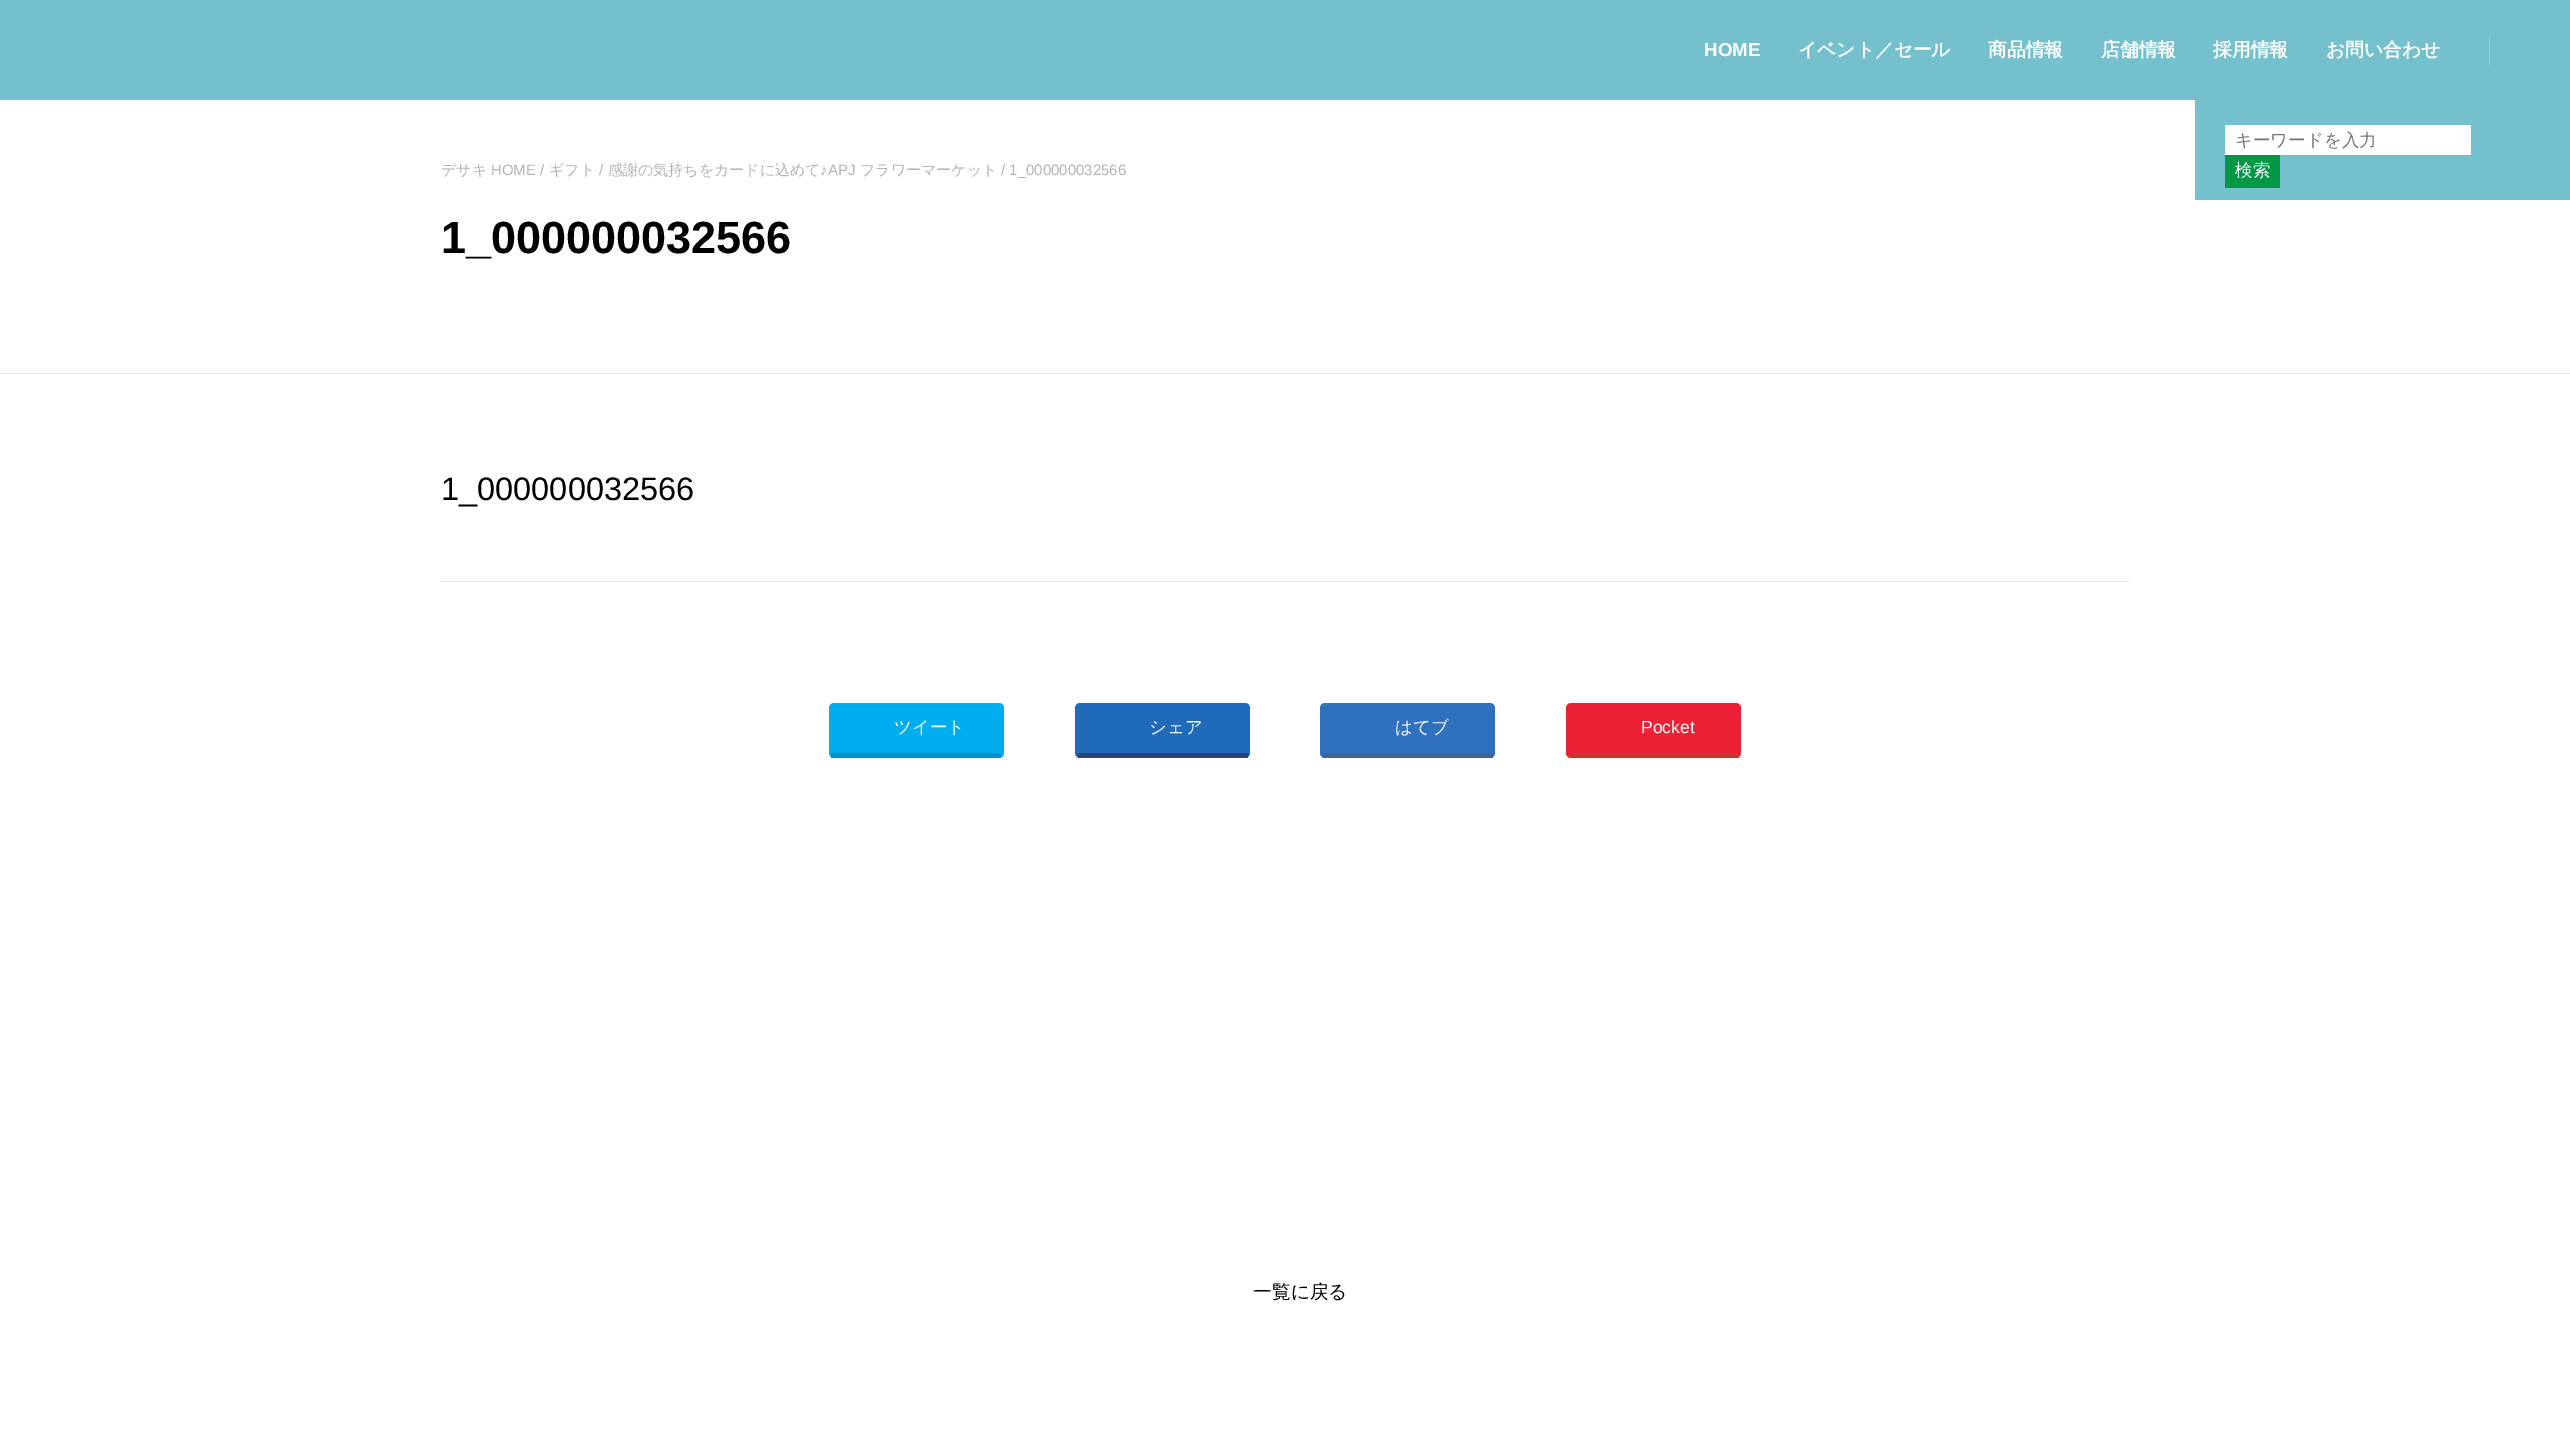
%!PS
<< /PageSize [2570 1434] >> setpagedevice
/roundrect { 5 dict begin { /r /h /w /y /x } { exch def } forall
  x r add y moveto x w add y 2 copy h add r arct x w add y h add x 1 index r arct
  x y h add x y r arct x y 2 copy exch w add exch r arct closepath end } def
0 1434 translate 1 -1 scale
4 setmiterlimit
1 setgray
0 0 2570 1434 rectfill
0.455 0.757 0.804 setrgbcolor
0 0 2570 100 rectfill
/LiberationSans-Bold [18.75 0 0 -18.75 0 0] selectfont
1 setgray
1704 56 moveto (HOME) show
/WenQuanYiZenHei-Bold [18.75 0 0 -18.75 0 0] selectfont
1798 56 moveto (イベント／セール) show
1988 56 moveto (商品情報) show
2101 56 moveto (店舗情報) show
2213 56 moveto (採用情報) show
2326 56 moveto (お問い合わせ) show
0.576 0.804 0.827 setrgbcolor
2489 36 1 29 rectfill
0.455 0.757 0.804 setrgbcolor
2195 100 375 100 rectfill
1 setgray
2225 125 246 30 rectfill
/WenQuanYiZenHei-Medium [17.5 0 0 -17.5 0 0] selectfont
0.459 setgray
2235 146 moveto (キーワードを入力) show
0 0.596 0.267 setrgbcolor
2225 155 55 33 rectfill
1 setgray
2235 176 moveto (検索) show
0.902 setgray
0 373 2570 1 rectfill
/WenQuanYiZenHei-Medium [15 0 0 -15 0 0] selectfont
0.702 setgray
441 175 moveto (デサキ) show
/LiberationSans-Regular [15 0 0 -15 0 0] selectfont
491 175 moveto (HOME /) show
/WenQuanYiZenHei-Medium [15 0 0 -15 0 0] selectfont
549 175 moveto (ギフト) show
/LiberationSans-Regular [15 0 0 -15 0 0] selectfont
599 175 moveto (/) show
/WenQuanYiZenHei-Medium [15 0 0 -15 0 0] selectfont
608 175 moveto (感謝の気持ちをカードに込めて) show
/LiberationSans-Regular [15 0 0 -15 0 0] selectfont
820 175 moveto (♪APJ) show
/WenQuanYiZenHei-Medium [15 0 0 -15 0 0] selectfont
860 175 moveto (フラワーマーケット) show
/LiberationSans-Regular [15 0 0 -15 0 0] selectfont
1001 175 moveto (/ 1_000000032566) show
/LiberationSans-Bold [45 0 0 -45 0 0] selectfont
0 setgray
441 253 moveto (1_000000032566) show
0.902 setgray
441 581 1688 1 rectfill
/LiberationSans-Regular [32.5 0 0 -32.5 0 0] selectfont
0 setgray
441 500 moveto (1_000000032566) show
0 0.678 0.933 setrgbcolor
829 703 175 55 5 roundrect fill
0.004 0.573 0.796 setrgbcolor
831 753 170 5 rectfill
/WenQuanYiZenHei-Medium [17.5 0 0 -17.5 0 0] selectfont
1 setgray
894 733 moveto (ツイート) show
0.122 0.42 0.729 setrgbcolor
1075 703 175 55 5 roundrect fill
0.173 0.263 0.455 setrgbcolor
1078 753 170 5 rectfill
1 setgray
1149 733 moveto (シェア) show
0.184 0.443 0.749 setrgbcolor
1320 703 175 55 5 roundrect fill
0.267 0.392 0.549 setrgbcolor
1323 753 170 5 rectfill
1 setgray
1395 733 moveto (はてブ) show
0.929 0.129 0.212 setrgbcolor
1566 703 175 55 5 roundrect fill
0.753 0.224 0.169 setrgbcolor
1569 753 170 5 rectfill
/LiberationSans-Regular [17.5 0 0 -17.5 0 0] selectfont
1 setgray
1641 733 moveto (Pocket) show
/WenQuanYiZenHei-Medium [18.75 0 0 -18.75 0 0] selectfont
0 setgray
1253 1298 moveto (一覧に戻る) show
showpage
